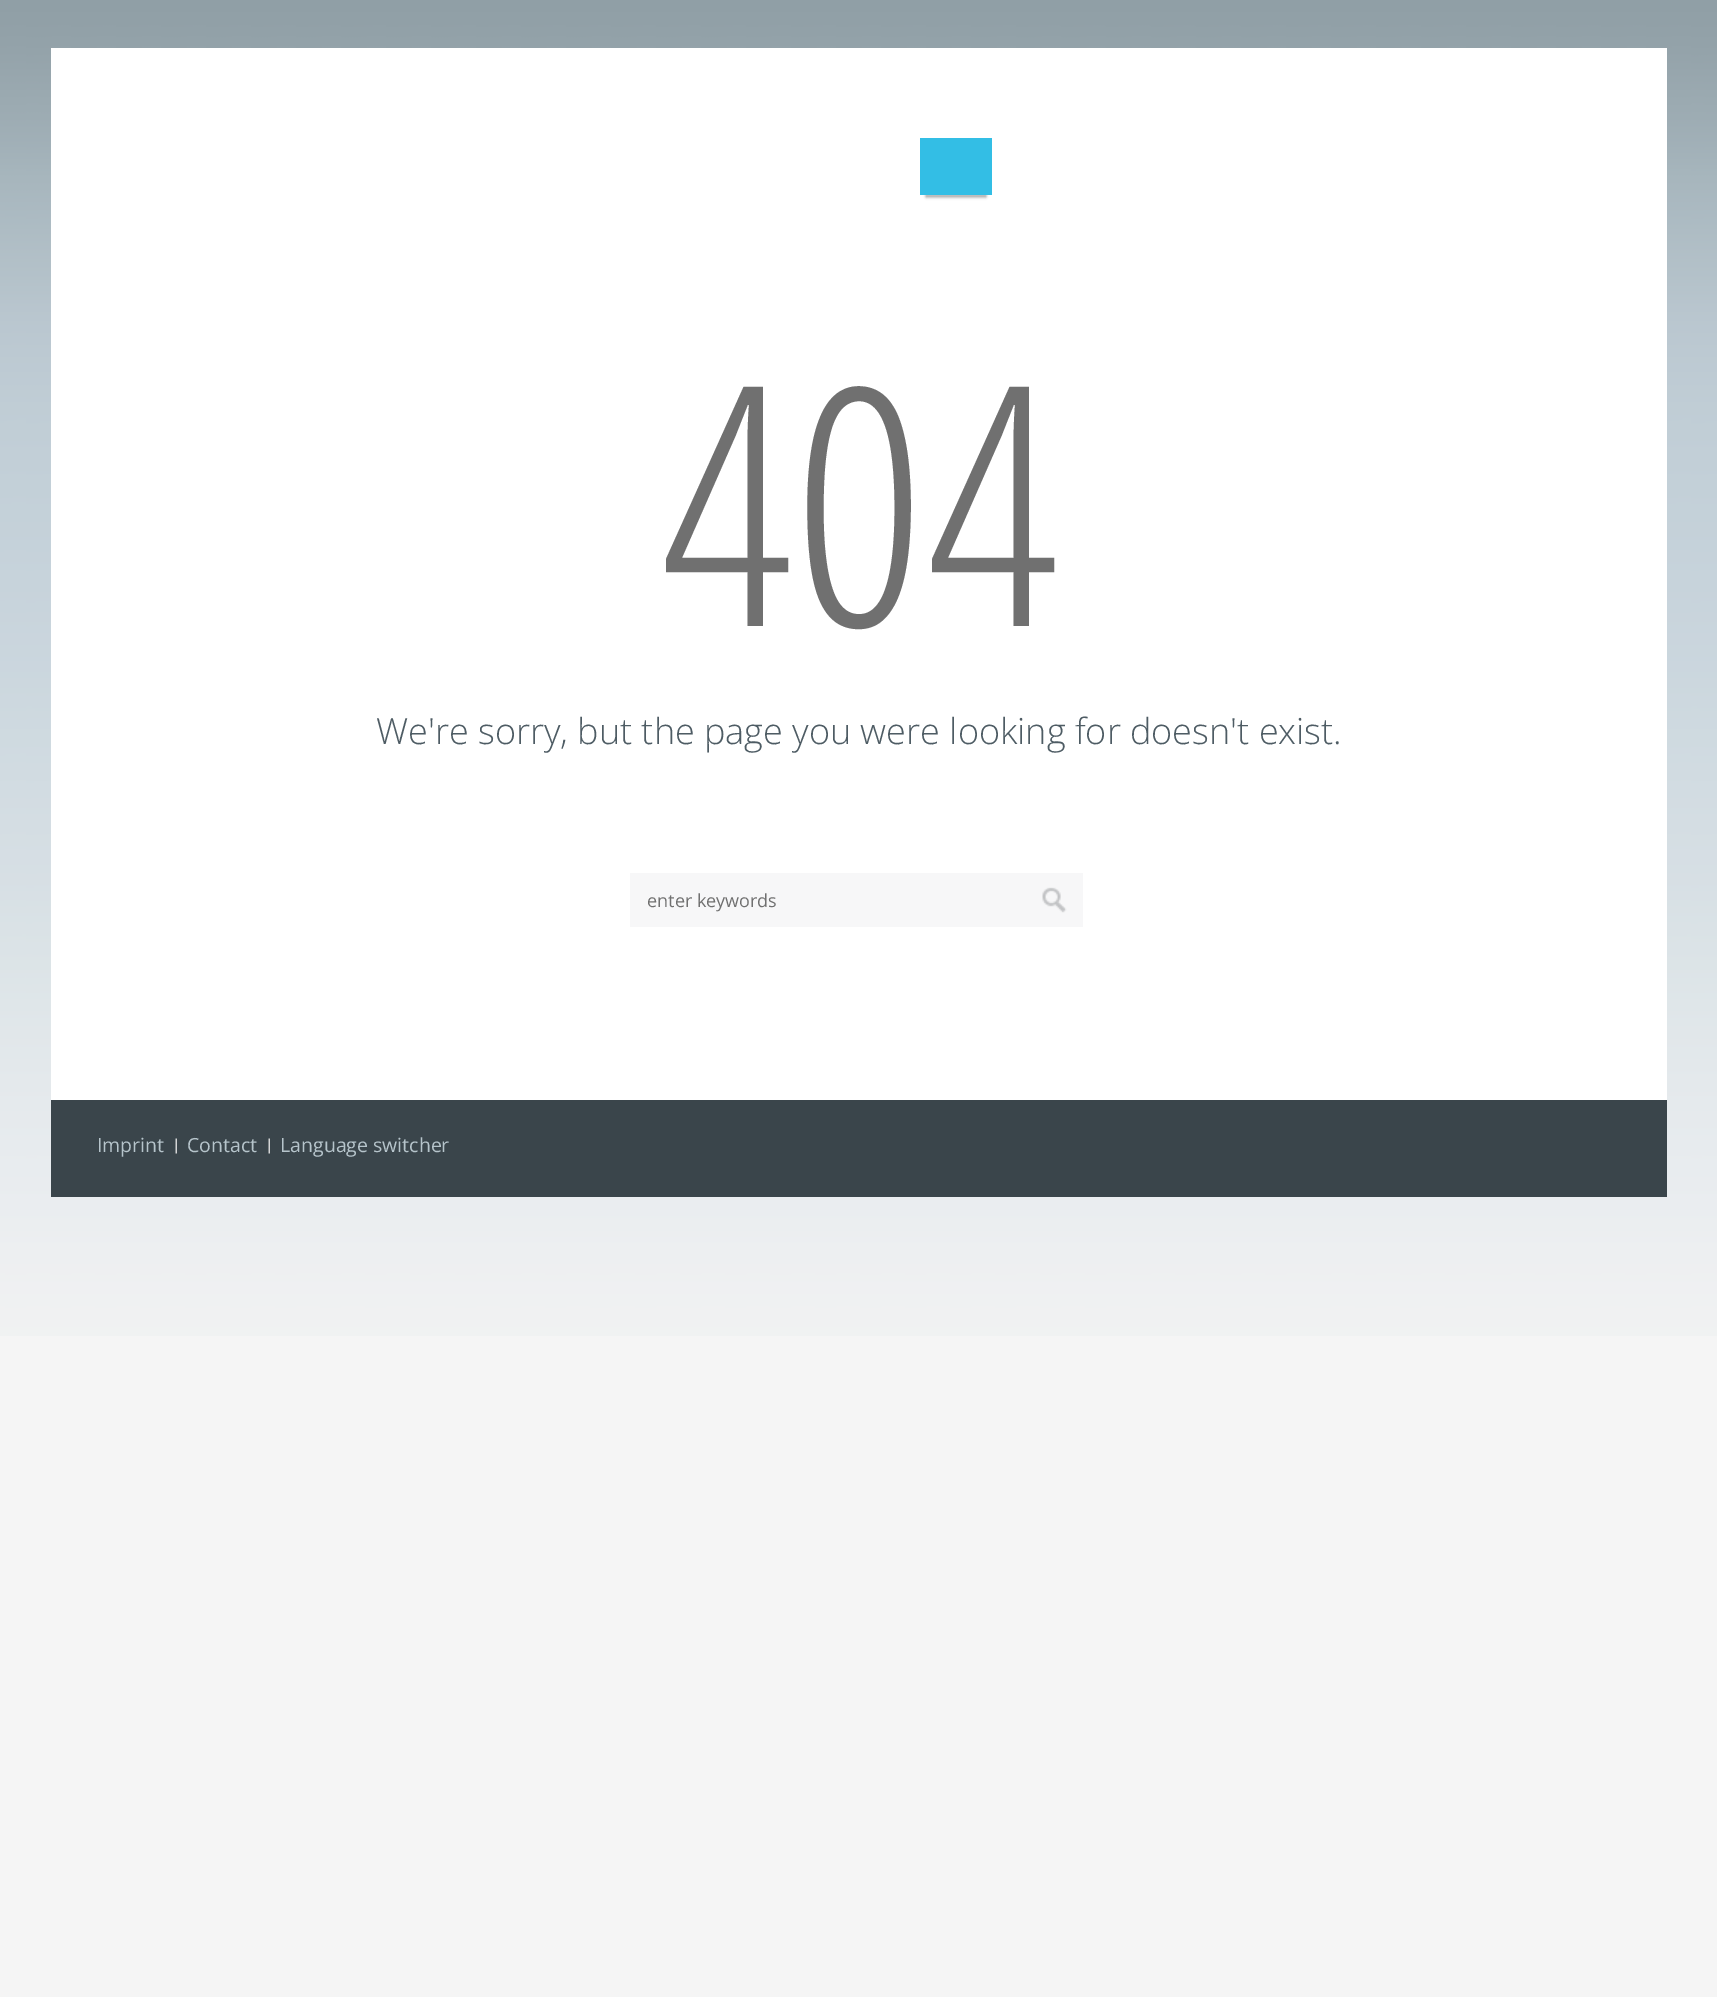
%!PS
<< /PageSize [1717 1997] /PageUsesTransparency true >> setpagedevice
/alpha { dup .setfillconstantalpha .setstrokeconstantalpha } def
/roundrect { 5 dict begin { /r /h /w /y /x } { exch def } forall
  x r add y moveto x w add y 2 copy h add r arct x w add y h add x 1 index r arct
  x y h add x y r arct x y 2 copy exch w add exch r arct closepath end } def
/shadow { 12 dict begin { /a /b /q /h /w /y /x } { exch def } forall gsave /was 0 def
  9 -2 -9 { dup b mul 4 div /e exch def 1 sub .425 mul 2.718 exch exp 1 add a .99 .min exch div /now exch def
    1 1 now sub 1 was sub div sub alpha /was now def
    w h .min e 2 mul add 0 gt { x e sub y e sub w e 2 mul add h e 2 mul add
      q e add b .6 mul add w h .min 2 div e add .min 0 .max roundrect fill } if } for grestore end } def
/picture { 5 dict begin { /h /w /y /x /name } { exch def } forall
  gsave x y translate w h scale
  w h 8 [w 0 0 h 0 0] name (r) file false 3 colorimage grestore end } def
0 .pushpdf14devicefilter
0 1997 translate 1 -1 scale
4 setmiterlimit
0.961 setgray
0 0 1717 1997 rectfill
(img1.rgb) 0 0 1717 1336 picture
1 setgray
51 48 1616 1052 rectfill
0 setgray
926 195 60 2 0 1.5 0.4 shadow
0.2 0.745 0.898 setrgbcolor
920 138 72 57 rectfill
/OpenSansCondensed-Light [332 0 0 -332 0 0] selectfont
0.439 setgray
660 626 moveto (404) show
/OpenSans-Light [36 0 0 -36 0 0] selectfont
0.306 0.361 0.392 setrgbcolor
376 744 moveto (We're sorry, but the page you were looking for doesn't exist.) show
0.969 0.969 0.973 setrgbcolor
630 873 453 54 rectfill
/OpenSans-Regular [18 0 0 -18 0 0] selectfont
0.439 setgray
647 907 moveto (enter keywords) show
(img2.rgb) 1042 887 25 26 picture
0.227 0.271 0.294 setrgbcolor
51 1100 1616 97 rectfill
/OpenSans-Regular [19.5 0 0 -19.5 0 0] selectfont
0.714 0.769 0.796 setrgbcolor
97 1152 moveto (Imprint) show
(img3.rgb) 175 1138 2 16 picture
187 1152 moveto (Contact) show
(img3.rgb) 268 1138 2 16 picture
280 1152 moveto (Language switcher) show
.poppdf14devicefilter showpage
